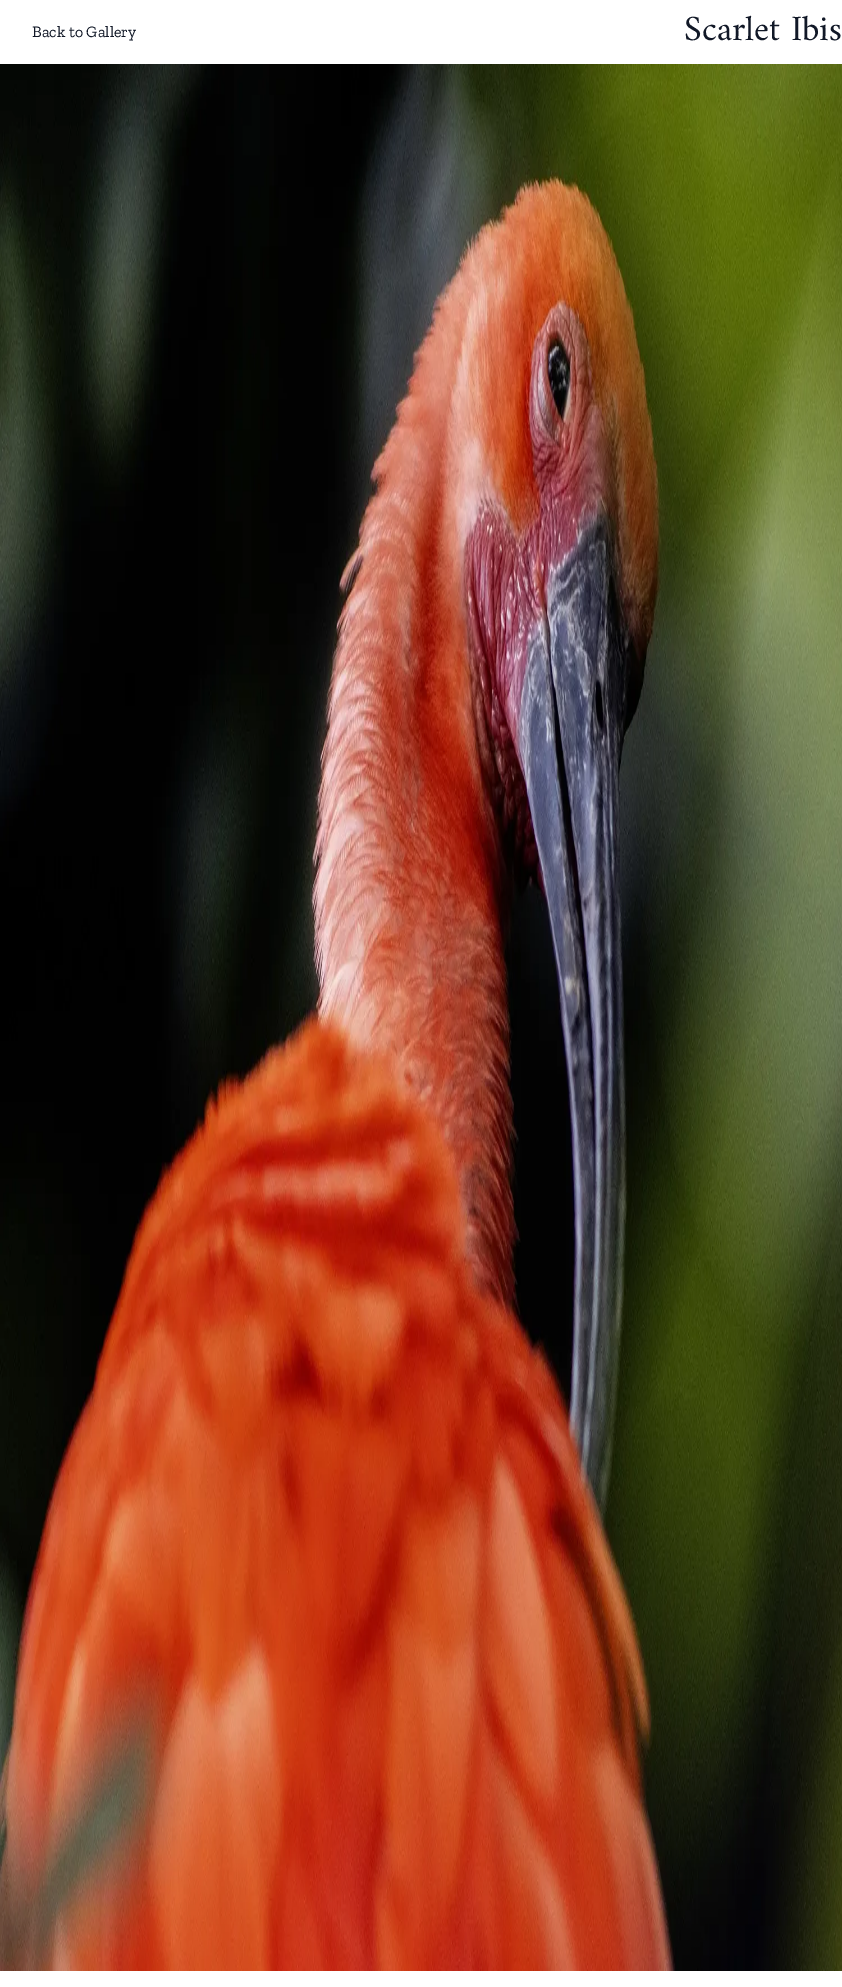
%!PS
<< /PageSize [842 1987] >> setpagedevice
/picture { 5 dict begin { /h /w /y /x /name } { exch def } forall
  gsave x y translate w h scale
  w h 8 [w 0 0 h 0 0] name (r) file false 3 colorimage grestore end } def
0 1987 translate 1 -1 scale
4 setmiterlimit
1 setgray
0 0 842 1987 rectfill
/ZillaSlab-Regular [16 0 0 -16 0 0] selectfont
0.067 0.094 0.153 setrgbcolor
32 37 moveto (Back to Gallery) show
/Amiri-Regular [36 0 0 -36 0 0] selectfont
684 40 moveto (Scarlet Ibis) show
(img1.rgb) 0 64 842 1907 picture
showpage
